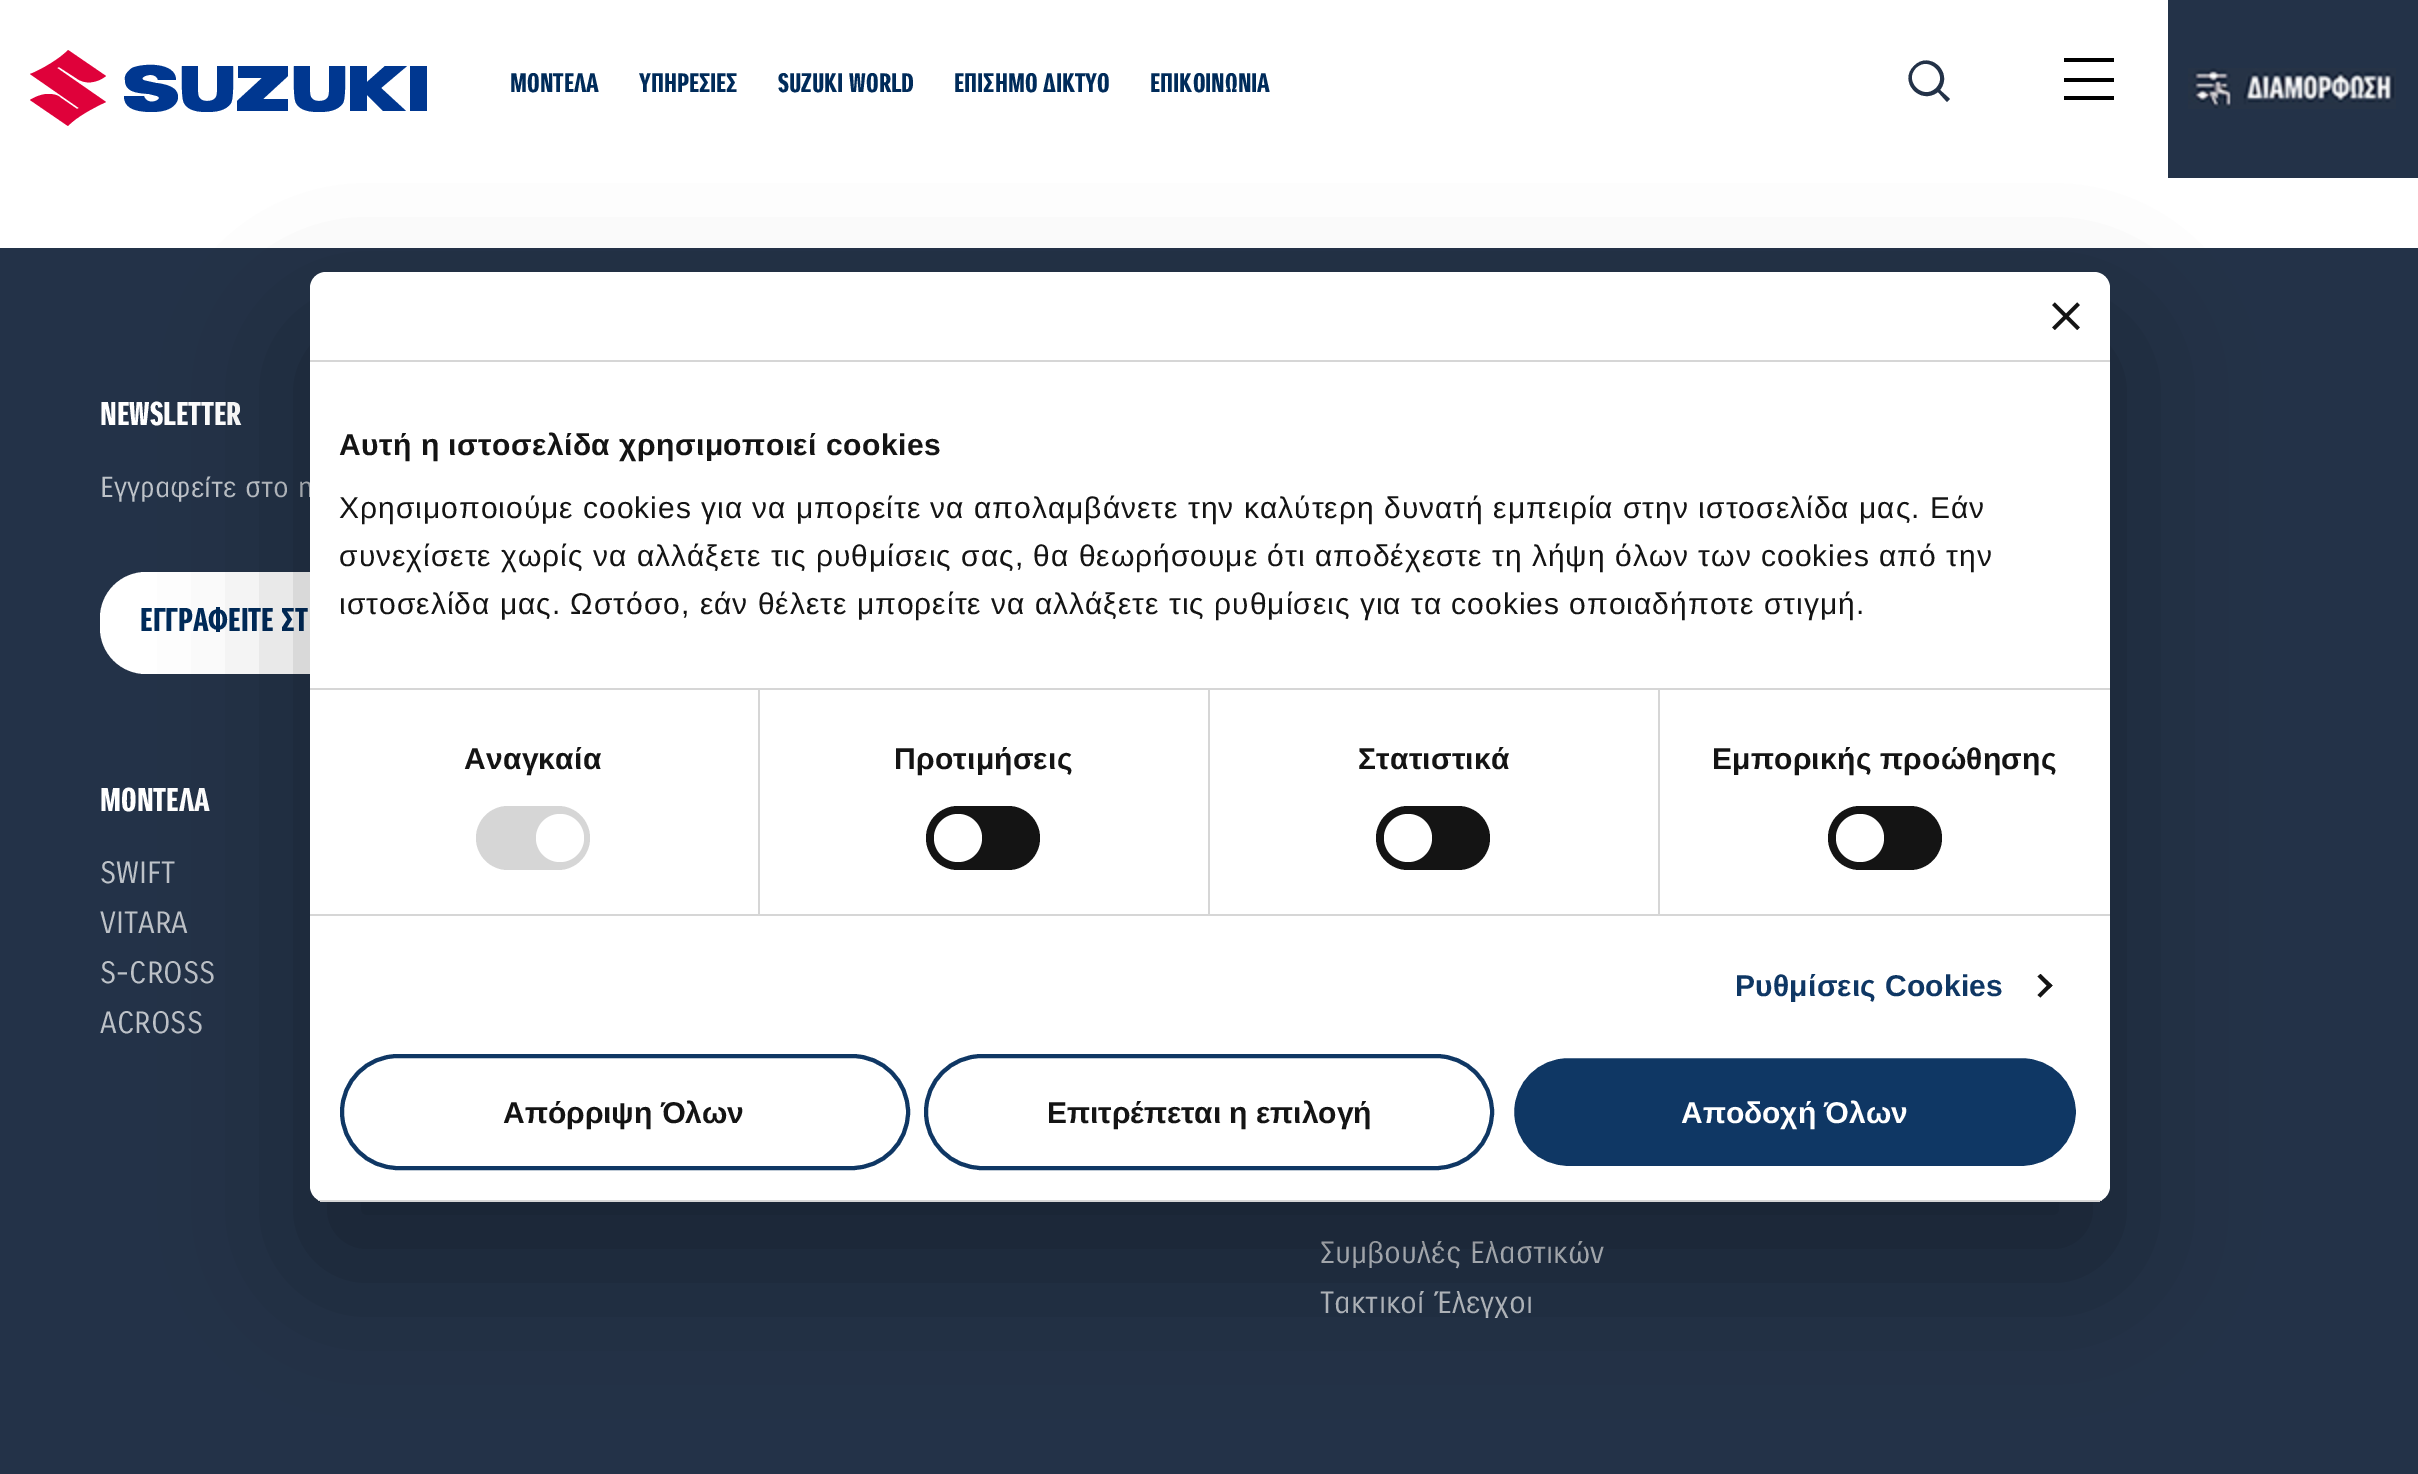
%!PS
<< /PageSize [2418 1474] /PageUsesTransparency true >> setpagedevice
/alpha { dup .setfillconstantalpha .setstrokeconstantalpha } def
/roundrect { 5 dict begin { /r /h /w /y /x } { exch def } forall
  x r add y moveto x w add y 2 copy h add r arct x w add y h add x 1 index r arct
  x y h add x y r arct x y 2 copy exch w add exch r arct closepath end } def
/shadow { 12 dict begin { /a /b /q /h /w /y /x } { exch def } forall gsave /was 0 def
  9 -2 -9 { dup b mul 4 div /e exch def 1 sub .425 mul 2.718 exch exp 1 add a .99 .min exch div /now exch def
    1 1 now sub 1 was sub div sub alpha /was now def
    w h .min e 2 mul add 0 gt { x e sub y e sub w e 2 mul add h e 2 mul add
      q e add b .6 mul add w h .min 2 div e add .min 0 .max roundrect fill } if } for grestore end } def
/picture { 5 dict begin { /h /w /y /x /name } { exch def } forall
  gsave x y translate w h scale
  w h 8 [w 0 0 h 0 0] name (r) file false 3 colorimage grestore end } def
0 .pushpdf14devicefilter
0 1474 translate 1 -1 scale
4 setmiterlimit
1 setgray
0 0 2418 1474 rectfill
0.875 0.004 0.227 setrgbcolor
newpath 59 67 moveto 57 68 lineto 106 102 lineto 95 107 76 117 68 126 curveto 30 100 lineto 30 100 39 94 48 94 curveto 54 94 58 95 61 98 curveto 77 109 lineto 79 108 lineto 30 74 lineto 41 70 61 58 68 50 curveto 106 76 lineto 97 83 85 85 76 78 curveto closepath fill
0 0.216 0.565 setrgbcolor
newpath 156 83 moveto 174 85 178 91 178 97 curveto 178 103 172 112 152 112 curveto 131 112 124 106 124 96 curveto 144 96 lineto 147 107 165 99 157 96 curveto 149 94 lineto 139 93 125 93 125 80 curveto 124 75 128 71 132 68 curveto 143 63 176 62 176 80 curveto 158 80 lineto 155 69 133 79 147 81 curveto closepath fill
newpath 238 78 moveto 238 66 lineto 288 66 lineto 288 76 lineto 263 99 lineto 288 99 lineto 288 111 lineto 237 111 lineto 237 101 lineto 262 78 lineto closepath fill
410 66 17 45 rectfill
newpath 385 66 moveto 407 66 lineto 381 88 lineto 406 111 lineto 383 111 lineto 367 95 lineto 367 111 lineto 350 111 lineto 350 66 lineto 367 66 lineto 367 82 lineto closepath fill
newpath 217 92 moveto 217 66 lineto 233 66 lineto 233 73 234 98 231 103 curveto 226 111 215 112 207 112 curveto 199 112 188 111 184 103 curveto 181 98 182 73 182 66 curveto 198 66 lineto 198 92 lineto 198 97 200 101 207 101 curveto 215 101 217 97 217 92 curveto closepath fill
newpath 329 92 moveto 329 66 lineto 345 66 lineto 345 73 346 98 343 103 curveto 338 111 327 112 319 112 curveto 311 112 300 111 296 103 curveto 293 98 294 73 294 66 curveto 310 66 lineto 310 92 lineto 310 97 312 101 319 101 curveto 327 101 329 97 329 92 curveto closepath fill
/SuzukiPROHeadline-Bold [26 0 0 -26 0 0] selectfont
0 0.169 0.353 setrgbcolor
510 92 moveto (ΜΟΝΤΕΛΑ) show
639 92 moveto (ΥΠΗΡΕΣΙΕΣ) show
778 92 moveto (SUZUKI WORLD) show
954 92 moveto (ΕΠΙΣΗΜΟ ΔΙΚΤΥΟ) show
1150 92 moveto (ΕΠΙΚΟΙΝΩΝΙΑ) show
0.137 0.196 0.282 setrgbcolor
newpath 1914 66 moveto 1929 50 1954 72 1940 90 curveto 1950 99 lineto 1947 102 lineto 1938 92 lineto 1920 106 1898 81 1914 66 curveto closepath 1916 68 moveto 1903 81 1923 101 1936 88 curveto 1949 75 1929 55 1916 68 curveto closepath fill
0 setgray
2064 58 50 4 rectfill
2064 78 50 4 rectfill
2064 96 50 4 rectfill
0.137 0.196 0.282 setrgbcolor
2168 0 250 178 rectfill
(img1.rgb) 2188 68 208 41 picture
0 248 2418 1226 rectfill
/SuzukiPROHeadline-Bold [32 0 0 -32 0 0] selectfont
1 setgray
100 425 moveto (NEWSLETTER) show
/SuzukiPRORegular-Regular [28 0 0 -28 0 0] selectfont
0.741 0.761 0.784 setrgbcolor
100 497 moveto (Εγγραφείτε στο n) show
1 setgray
100 572 412 102 46 roundrect fill
/SuzukiPROHeadline-Bold [32 0 0 -32 0 0] selectfont
0 0.169 0.353 setrgbcolor
140 631 moveto (ΕΓΓΡΑΦΕΙΤΕ ΣΤ) show
1 setgray
100 811 moveto (ΜΟΝΤΕΛΑ) show
/SuzukiPRORegular-Regular [30 0 0 -30 0 0] selectfont
0.741 0.761 0.784 setrgbcolor
100 883 moveto (SWIFT) show
100 933 moveto (VITARA) show
100 983 moveto (S-CROSS) show
100 1033 moveto (ACROSS) show
1320 1263 moveto (Συμβουλές Ελαστικών) show
1320 1313 moveto (Τακτικοί Έλεγχοι) show
0 setgray
310 336 1800 930 16 68 0.3 shadow
1 setgray
310 272 1800 930 16 roundrect fill
0.839 setgray
310 360 1800 2 rectfill
(img2.rgb) 2052 302 28 28 picture
310 688 1800 2 rectfill
/LiberationSans-Bold [30 0 0 -30 0 0] selectfont
0.078 setgray
339 455 moveto 0.5 0 (Αυτή η ιστοσελίδα χρησιμοποιεί cookies) ashow
/LiberationSans-Regular [30 0 0 -30 0 0] selectfont
339 518 moveto 1 0 (Χρησιμοποιούμε cookies για να μπορείτε να απολαμβάνετε την καλύτερη δυνατή εμπειρία στην ιστοσελίδα μας. Εάν) ashow
339 566 moveto 1 0 (συνεχίσετε χωρίς να αλλάξετε τις ρυθμίσεις σας, θα θεωρήσουμε ότι αποδέχεστε τη λήψη όλων των cookies από την) ashow
339 614 moveto 1 0 (ιστοσελίδα μας. Ωστόσο, εάν θέλετε μπορείτε να αλλάξετε τις ρυθμίσεις για τα cookies οποιαδήποτε στιγμή.) ashow
0.839 setgray
310 914 1800 2 rectfill
758 690 2 224 rectfill
/LiberationSans-Bold [30 0 0 -30 0 0] selectfont
0.078 setgray
464 769 moveto 0.25 0 (Αναγκαία) ashow
0.839 setgray
476 806 114 64 32 roundrect fill
1 setgray
newpath 560 838 24 0 360 arc closepath fill
0.839 setgray
1208 690 2 224 rectfill
0.078 setgray
894 769 moveto 0.25 0 (Προτιμήσεις) ashow
926 806 114 64 32 roundrect fill
1 setgray
newpath 958 838 24 0 360 arc closepath fill
0.839 setgray
1658 690 2 224 rectfill
0.078 setgray
1358 769 moveto 0.25 0 (Στατιστικά) ashow
1376 806 114 64 32 roundrect fill
1 setgray
newpath 1408 838 24 0 360 arc closepath fill
0.078 setgray
1712 769 moveto 0.25 0 (Εμπορικής προώθησης) ashow
1828 806 114 64 32 roundrect fill
1 setgray
newpath 1860 838 24 0 360 arc closepath fill
0.059 0.216 0.392 setrgbcolor
1735 996 moveto 0.25 0 (Ρυθμίσεις Cookies) ashow
0.078 setgray
newpath 2040.5 974 moveto 2052.5 985.5 lineto 2049.5 988.5 lineto 2037.5 976.5 lineto closepath fill
newpath 2049.5 983 moveto 2052.5 985.5 lineto 2040.5 997.5 lineto 2037.5 995 lineto closepath fill
gsave
310 272 1800 930 16 roundrect clip newpath
0.839 setgray
310 1200 1800 2 rectfill
grestore
0.059 0.216 0.392 setrgbcolor
4 setlinewidth
342 1056 566 112 56 roundrect stroke
0.078 setgray
503 1123 moveto (Απόρριψη Όλων) show
0.059 0.216 0.392 setrgbcolor
926 1056 566 112 56 roundrect stroke
0.078 setgray
1047 1123 moveto (Επιτρέπεται η επιλογή) show
0.059 0.216 0.392 setrgbcolor
1512 1056 566 112 56 roundrect gsave fill grestore
1 setgray
stroke
1681 1123 moveto (Αποδοχή Όλων) show
.poppdf14devicefilter showpage
